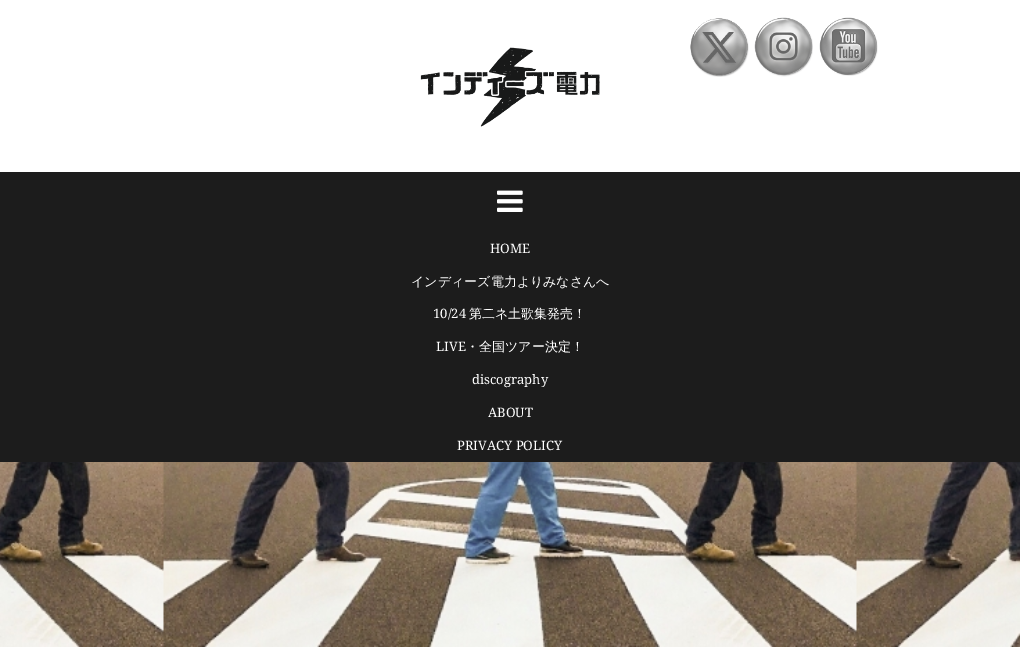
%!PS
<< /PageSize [1020 647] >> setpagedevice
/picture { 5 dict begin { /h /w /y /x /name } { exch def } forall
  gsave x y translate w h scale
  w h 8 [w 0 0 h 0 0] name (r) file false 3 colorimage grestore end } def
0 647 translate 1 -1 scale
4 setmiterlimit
1 setgray
0 0 1020 647 rectfill
(img1.rgb) 0 462 1020 185 picture
(img2.rgb) 690 18 59 59 picture
(img3.rgb) 754 17 59 60 picture
(img4.rgb) 819 17 59 59 picture
(img5.rgb) 420 47 180 80 picture
0.11 setgray
0 172 1020 290 rectfill
(img6.rgb) 497 190 26 22 picture
/NotoSerif-Regular [13 0 0 -13 0 0] selectfont
1 setgray
490 253 moveto (HOME) show
/WenQuanYiZenHei-Medium [13 0 0 -13 0 0] selectfont
411 286 moveto (インディーズ電力よりみなさんへ) show
/NotoSerif-Regular [13 0 0 -13 0 0] selectfont
433 318 moveto (10/24) show
/WenQuanYiZenHei-Medium [13 0 0 -13 0 0] selectfont
469 318 moveto (第二ネ土歌集発売！) show
/NotoSerif-Regular [13 0 0 -13 0 0] selectfont
436 351 moveto (LIVE) show
/WenQuanYiZenHei-Medium [13 0 0 -13 0 0] selectfont
466 351 moveto (・全国ツアー決定！) show
/NotoSerif-Regular [13 0 0 -13 0 0] selectfont
472 384 moveto (discography) show
488 417 moveto (ABOUT) show
457 450 moveto (PRIVACY POLICY) show
showpage
